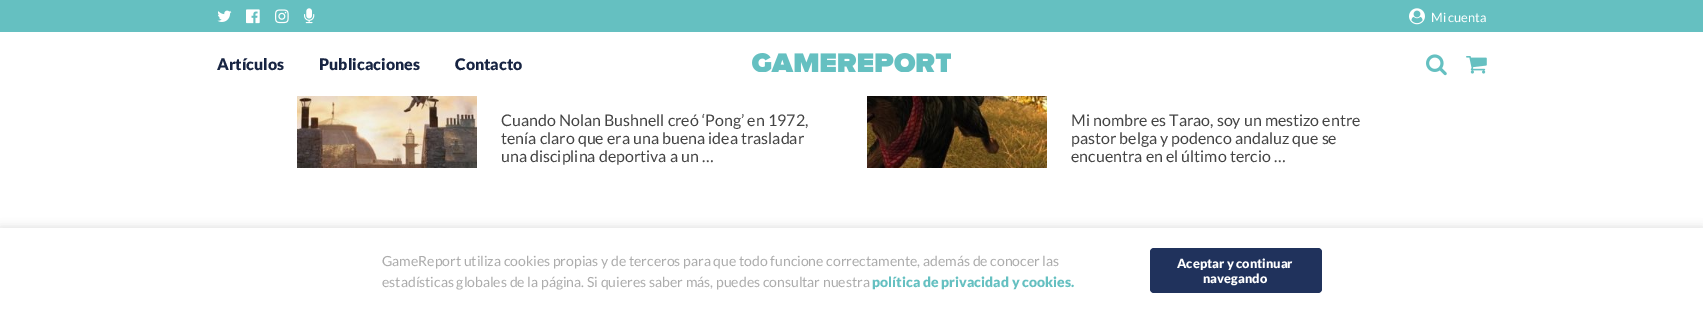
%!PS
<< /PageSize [1703 313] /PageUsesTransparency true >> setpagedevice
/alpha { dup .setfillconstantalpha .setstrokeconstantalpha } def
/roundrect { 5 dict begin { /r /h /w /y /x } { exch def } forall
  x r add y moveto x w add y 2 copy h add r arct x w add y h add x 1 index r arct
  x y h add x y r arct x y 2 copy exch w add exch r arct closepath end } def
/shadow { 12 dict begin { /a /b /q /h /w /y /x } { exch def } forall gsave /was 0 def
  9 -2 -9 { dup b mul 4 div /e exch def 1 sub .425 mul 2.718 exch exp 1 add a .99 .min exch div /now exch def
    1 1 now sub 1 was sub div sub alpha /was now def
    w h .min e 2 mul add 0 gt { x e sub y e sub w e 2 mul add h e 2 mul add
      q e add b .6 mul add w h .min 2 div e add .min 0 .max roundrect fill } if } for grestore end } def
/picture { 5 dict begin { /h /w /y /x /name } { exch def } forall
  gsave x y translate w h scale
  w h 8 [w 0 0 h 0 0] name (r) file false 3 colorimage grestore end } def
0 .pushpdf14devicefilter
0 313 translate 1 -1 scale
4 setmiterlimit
1 setgray
0 0 1703 313 rectfill
0.396 0.753 0.757 setrgbcolor
0 0 1703 32 rectfill
(img1.rgb) 217 10 15 12 picture
(img2.rgb) 246 9 14 15 picture
(img3.rgb) 275 9 14 15 picture
(img4.rgb) 304 8 11 16 picture
(img5.rgb) 1409 8 16 17 picture
/Lato-Regular [12.75 0 0 -12.75 0 0] selectfont
1 setgray
1431 22 moveto (Mi cuenta) show
/Lato-Black [16 0 0 -16 0 0] selectfont
0.09 0.141 0.259 setrgbcolor
217 70 moveto (Artículos) show
319 70 moveto (Publicaciones) show
455 70 moveto (Contacto) show
(img6.rgb) 752 53 199 19 picture
(img7.rgb) 1426 54 21 22 picture
(img8.rgb) 1466 56 21 18 picture
(img9.rgb) 297 96 180 72 picture
/Lato-Regular [16 0 0 -16 0 0] selectfont
0.267 setgray
501 126 moveto (Cuando Nolan Bushnell creó ‘Pong’ en 1972,) show
501 144 moveto (tenía claro que era una buena idea trasladar) show
501 162 moveto (una disciplina deportiva a un …) show
(img10.rgb) 867 96 180 72 picture
1071 126 moveto (Mi nombre es Tarao, soy un mestizo entre) show
1071 144 moveto (pastor belga y podenco andaluz que se) show
1071 162 moveto (encuentra en el último tercio …) show
0.09 setgray
1 229 1701 83 0 5 0.2 shadow
1 setgray
0 228 1703 85 rectfill
/Lato-Regular [14 0 0 -14 0 0] selectfont
0.675 setgray
382 266 moveto (GameReport utiliza cookies propias y de terceros para que todo funcione correctamente, además de conocer las) show
382 287 moveto (estadísticas globales de la página. Si quieres saber más, puedes consultar nuestra) show
/Lato-Black [14 0 0 -14 0 0] selectfont
0.396 0.753 0.757 setrgbcolor
872 287 moveto (política de privacidad y cookies.) show
0.125 0.196 0.361 setrgbcolor
1150 248 172 45 4 roundrect fill
/Lato-Black [12.75 0 0 -12.75 0 0] selectfont
1 setgray
1177 268 moveto (Aceptar y continuar) show
1203 283 moveto (navegando) show
.poppdf14devicefilter showpage
